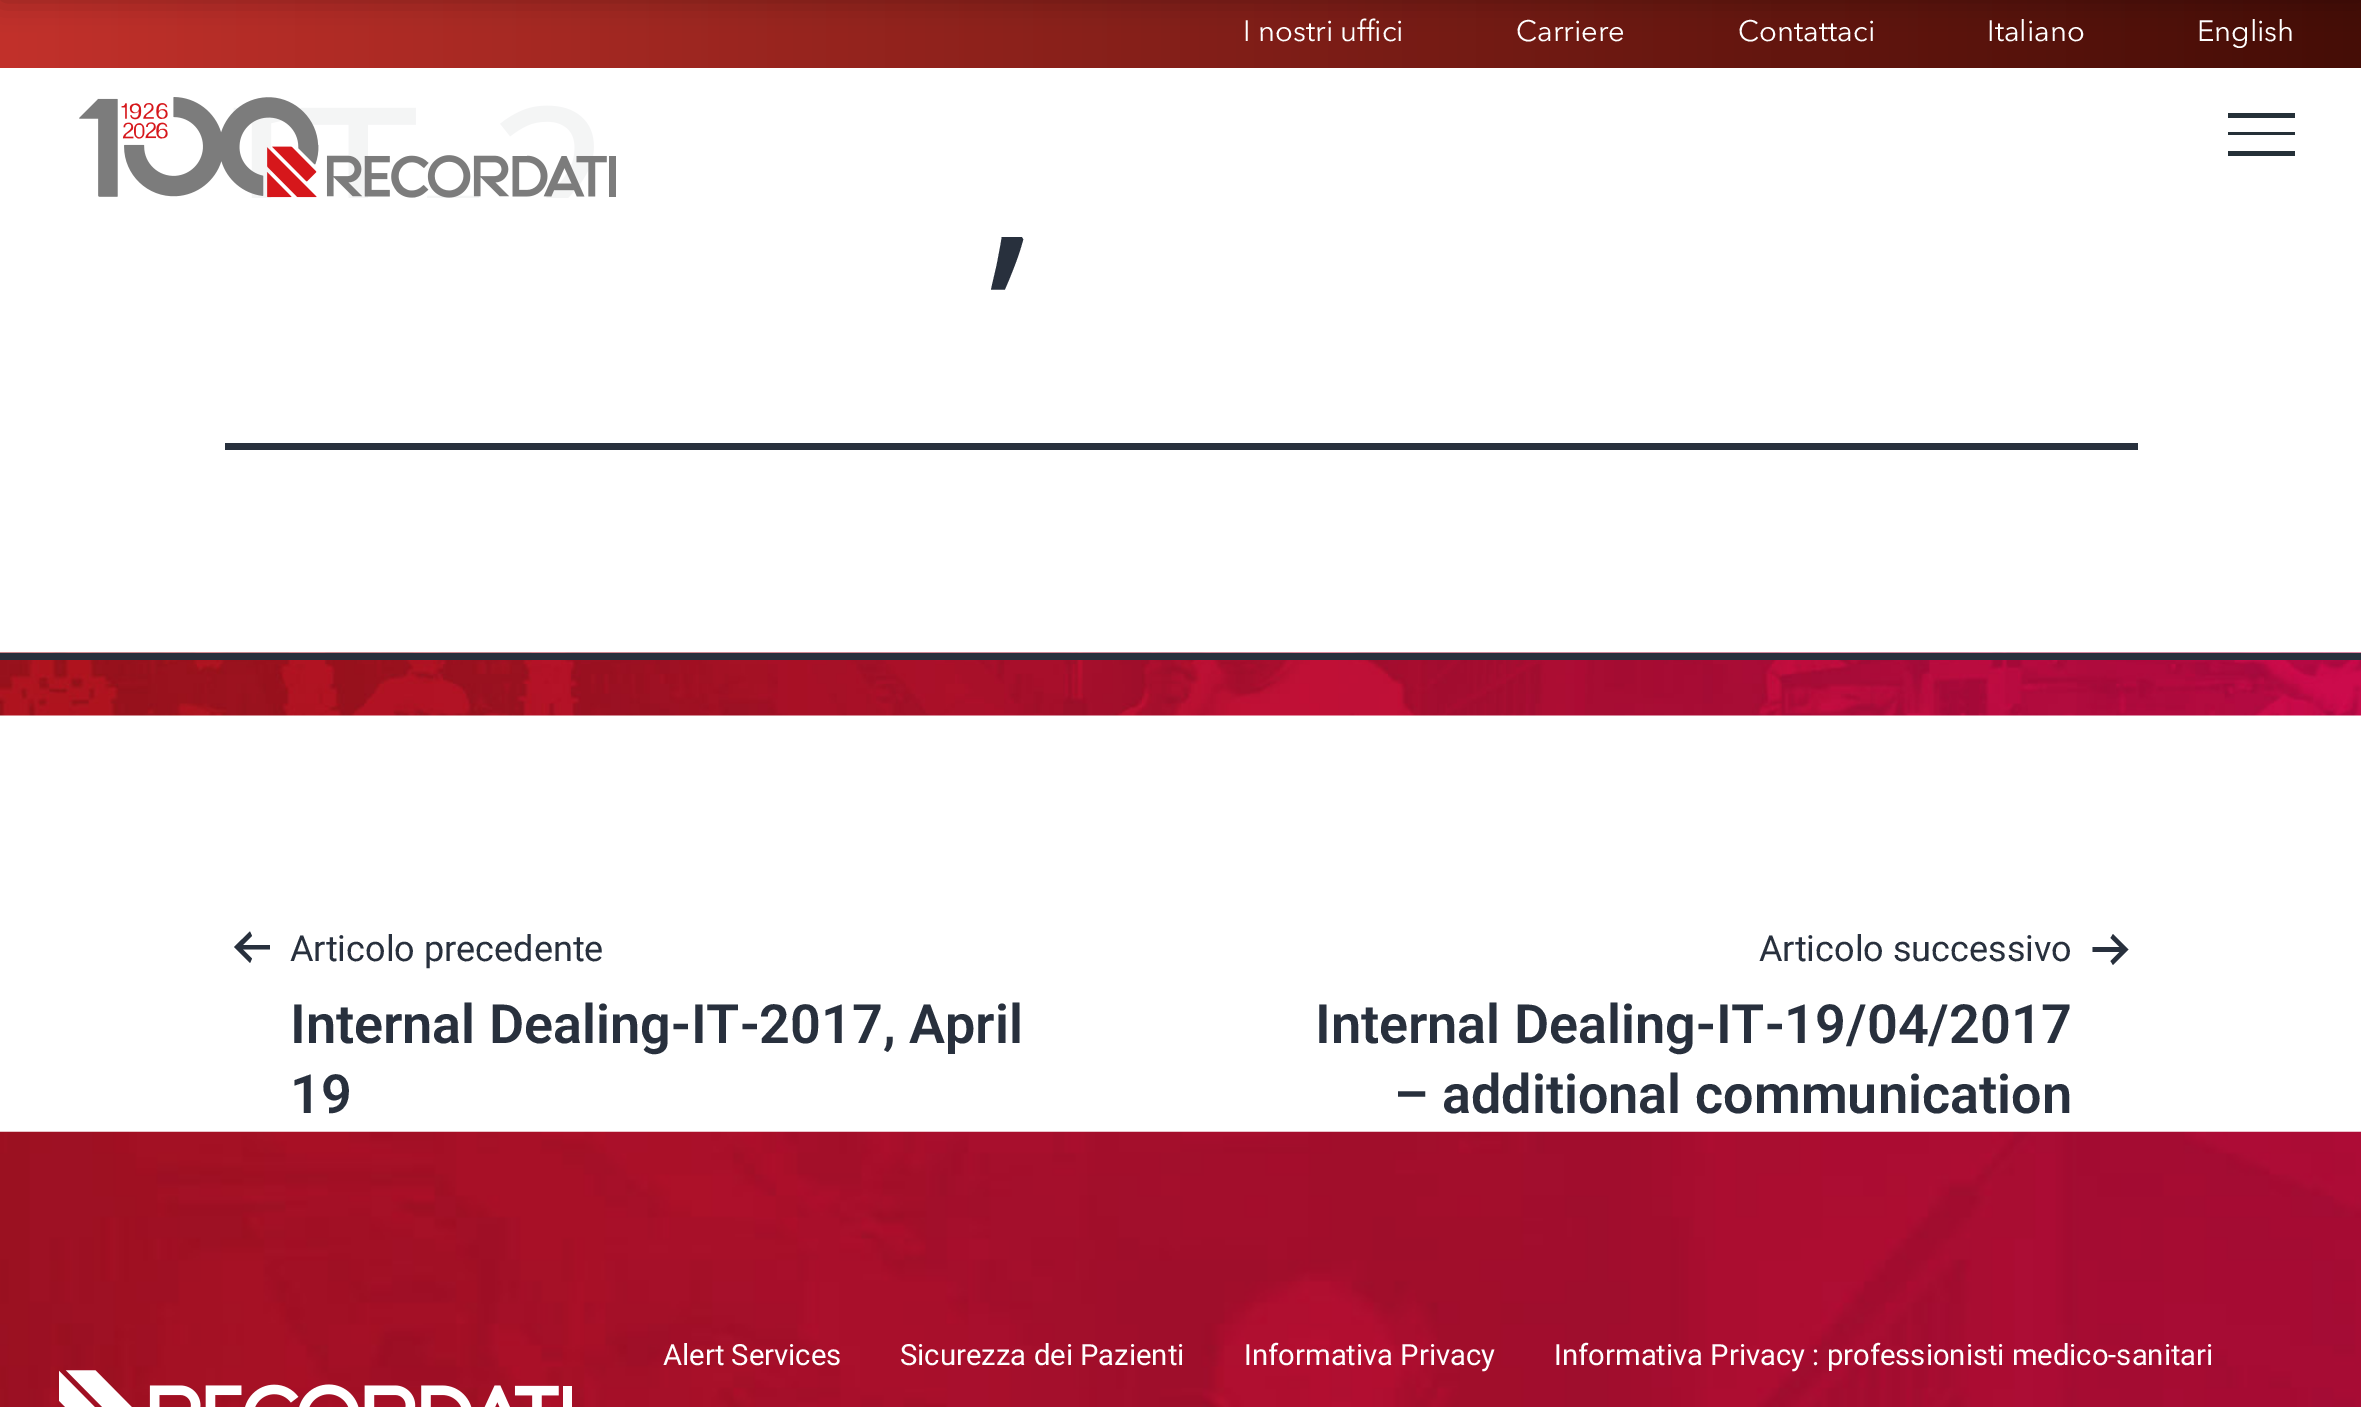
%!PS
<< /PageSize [2361 1407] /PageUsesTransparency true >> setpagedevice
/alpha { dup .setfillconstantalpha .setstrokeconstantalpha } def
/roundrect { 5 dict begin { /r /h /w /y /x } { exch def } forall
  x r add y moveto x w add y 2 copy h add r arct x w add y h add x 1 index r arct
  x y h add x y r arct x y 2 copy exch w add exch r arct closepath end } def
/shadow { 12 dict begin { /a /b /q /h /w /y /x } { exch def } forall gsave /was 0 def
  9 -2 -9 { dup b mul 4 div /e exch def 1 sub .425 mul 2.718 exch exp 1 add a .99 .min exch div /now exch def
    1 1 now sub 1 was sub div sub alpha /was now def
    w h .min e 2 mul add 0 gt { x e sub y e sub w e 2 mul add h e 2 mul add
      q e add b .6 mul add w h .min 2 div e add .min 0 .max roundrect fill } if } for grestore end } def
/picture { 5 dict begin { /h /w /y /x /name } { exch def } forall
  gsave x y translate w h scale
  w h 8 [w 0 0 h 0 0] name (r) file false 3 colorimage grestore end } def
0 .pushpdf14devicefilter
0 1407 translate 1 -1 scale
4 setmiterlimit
1 setgray
0 0 2361 1407 rectfill
gsave newpath 0 0 moveto 2361 0 lineto 2361 68 lineto 0 68 lineto closepath clip newpath
<< /ShadingType 2 /ColorSpace /DeviceRGB /Coords [0 34 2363 34] /Extend [true true] /Function << /FunctionType 2 /Domain [0 1] /C0 [0.761 0.192 0.169] /C1 [0.271 0.051 0.024] /N 1 >> >> shfill grestore
0 setgray
0 -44 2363 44 0 14.5 0.25 shadow
/AvenirNext-Regular [29.25 0 0 -29.25 0 0] selectfont
1 setgray
1243 41 moveto (I nostri uffici) show
1516 41 moveto (Carriere) show
1738 41 moveto (Contattaci) show
1987 41 moveto (Italiano) show
2197 41 moveto (English) show
(img1.rgb) 79 97 537 101 picture
0.145 0.188 0.22 setrgbcolor
2228 113 67 5 rectfill
2228 132 67 3 rectfill
2228 151 67 5 rectfill
0.157 0.188 0.239 setrgbcolor
225 443 1913 7 rectfill
/NotoSans-Regular [216 0 0 -216 0 0] selectfont
982 262 moveto (,) show
(img2.rgb) 0 652 2361 64 picture
0 653 2361 7 rectfill
newpath 270 949.5 moveto 270 945 lineto 243 945 lineto 252 936 lineto 250 931.5 lineto 234 947 lineto 250 963 lineto 252 958.5 lineto 243 949.5 lineto closepath eofill
/Roboto-Regular [36 0 0 -36 0 0] selectfont
290 961 moveto (Articolo precedente) show
/Roboto-SemiBold [54 0 0 -54 0 0] selectfont
290 1043 moveto (Internal Dealing-IT-2017, April) show
290 1113 moveto (19) show
/Roboto-Regular [36 0 0 -36 0 0] selectfont
1759 961 moveto (Articolo successivo) show
newpath 2092.5 952 moveto 2092.5 947 lineto 2119.5 947 lineto 2110.5 938 lineto 2113 934 lineto 2128.5 949.5 lineto 2113 965 lineto 2110.5 961 lineto 2119.5 952 lineto closepath eofill
/Roboto-SemiBold [54 0 0 -54 0 0] selectfont
1315 1043 moveto (Internal Dealing-IT-19/04/2017) show
1394 1113 moveto (– additional communication) show
(img3.rgb) 0 1131 2361 276 picture
/Roboto-Regular [29.25 0 0 -29.25 0 0] selectfont
1 setgray
663 1365 moveto (Alert Services) show
900 1365 moveto (Sicurezza dei Pazienti) show
1244 1365 moveto (Informativa Privacy) show
1554 1365 moveto (Informativa Privacy : professionisti medico-sanitari) show
(img4.rgb) 59 1370 513 37 picture
.poppdf14devicefilter showpage
